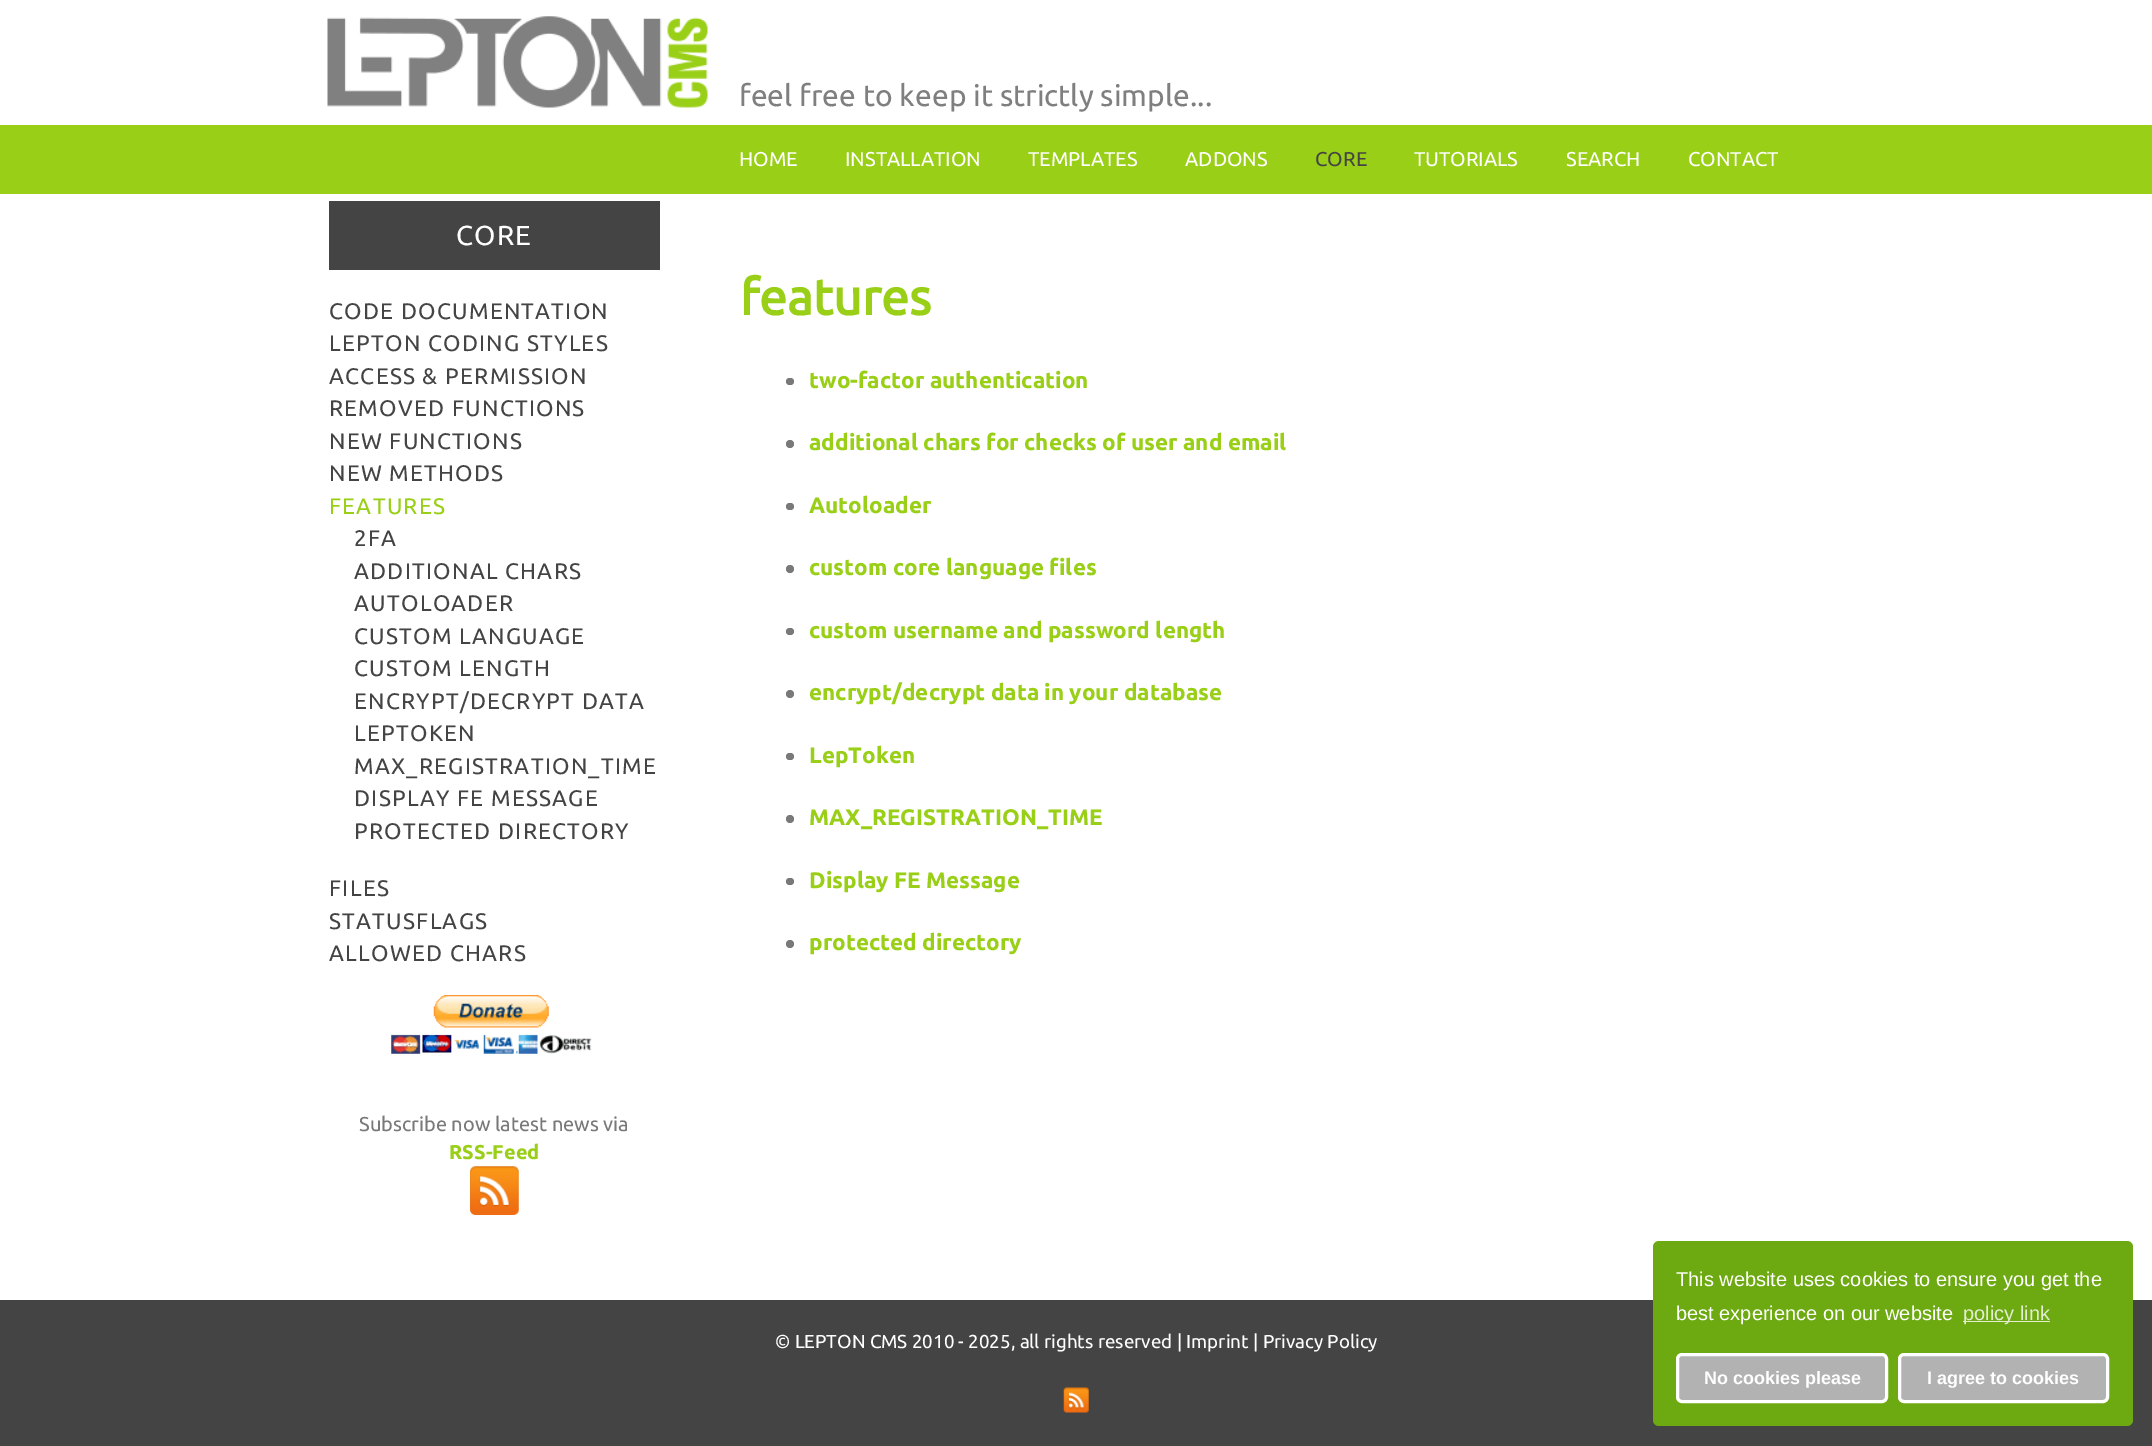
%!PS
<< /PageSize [2152 1446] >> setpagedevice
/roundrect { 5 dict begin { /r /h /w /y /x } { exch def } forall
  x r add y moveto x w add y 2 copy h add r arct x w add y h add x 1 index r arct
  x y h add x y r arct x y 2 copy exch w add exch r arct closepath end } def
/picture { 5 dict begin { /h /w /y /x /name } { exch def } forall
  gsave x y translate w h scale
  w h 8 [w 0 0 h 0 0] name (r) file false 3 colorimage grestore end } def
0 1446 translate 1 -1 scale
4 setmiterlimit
0.267 setgray
0 0 2152 1446 rectfill
1 setgray
0 0 2152 125 rectfill
(img1.rgb) 327 16 381 92 picture
/Ubuntu-Regular [30 0 0 -30 0 0] selectfont
0.498 setgray
739 106 moveto (feel free to keep it strictly simple...) show
0.6 0.812 0.086 setrgbcolor
0 125 2152 69 rectfill
/Ubuntu-Regular [20 0 0 -20 0 0] selectfont
1 setgray
739 166 moveto (HOME) show
845 166 moveto (INSTALLATION) show
1028 166 moveto (TEMPLATES) show
1185 166 moveto (ADDONS) show
0.267 setgray
1315 166 moveto (CORE) show
1 setgray
1414 166 moveto (TUTORIALS) show
1566 166 moveto (SEARCH) show
1688 166 moveto (CONTACT) show
0 194 2152 1106 rectfill
0.267 setgray
329 201 331 69 rectfill
/Ubuntu-Regular [27.5 0 0 -27.5 0 0] selectfont
1 setgray
456 245 moveto 1.25 0 (CORE) ashow
/Ubuntu-Regular [22.5 0 0 -22.5 0 0] selectfont
0.267 setgray
329 319 moveto 1.25 0 (CODE DOCUMENTATION) ashow
329 351 moveto 1.25 0 (LEPTON CODING STYLES) ashow
329 384 moveto 1.25 0 (ACCESS & PERMISSION) ashow
329 416 moveto 1.25 0 (REMOVED FUNCTIONS) ashow
329 449 moveto 1.25 0 (NEW FUNCTIONS) ashow
329 481 moveto 1.25 0 (NEW METHODS) ashow
0.6 0.812 0.086 setrgbcolor
329 514 moveto 1.25 0 (FEATURES) ashow
0.267 setgray
354 546 moveto 1.25 0 (2FA) ashow
354 579 moveto 1.25 0 (ADDITIONAL CHARS) ashow
354 611 moveto 1.25 0 (AUTOLOADER) ashow
354 644 moveto 1.25 0 (CUSTOM LANGUAGE) ashow
354 676 moveto 1.25 0 (CUSTOM LENGTH) ashow
354 709 moveto 1.25 0 (ENCRYPT/DECRYPT DATA) ashow
354 741 moveto 1.25 0 (LEPTOKEN) ashow
354 774 moveto 1.25 0 (MAX_REGISTRATION_TIME) ashow
354 806 moveto 1.25 0 (DISPLAY FE MESSAGE) ashow
354 839 moveto 1.25 0 (PROTECTED DIRECTORY) ashow
329 896 moveto 1.25 0 (FILES) ashow
329 929 moveto 1.25 0 (STATUSFLAGS) ashow
329 961 moveto 1.25 0 (ALLOWED CHARS) ashow
(img2.rgb) 391 995 201 59 picture
/Ubuntu-Regular [20 0 0 -20 0 0] selectfont
0.475 setgray
359 1131 moveto (Subscribe now latest news via) show
/Ubuntu-Bold [20 0 0 -20 0 0] selectfont
0.6 0.812 0.086 setrgbcolor
449 1159 moveto (RSS-Feed) show
(img3.rgb) 470 1166 49 49 picture
/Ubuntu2-Bold [50 0 0 -50 0 0] selectfont
740 315 moveto (features) show
0.475 setgray
786 378 8 7 3.5 roundrect fill
/Ubuntu-Bold [22.5 0 0 -22.5 0 0] selectfont
0.6 0.812 0.086 setrgbcolor
809 388 moveto (two-factor authentication) show
0.475 setgray
newpath 790 444 4 0 360 arc closepath fill
0.6 0.812 0.086 setrgbcolor
809 450 moveto (additional chars for checks of user and email) show
0.475 setgray
786 503 8 7 3.5 roundrect fill
0.6 0.812 0.086 setrgbcolor
809 513 moveto (Autoloader) show
0.475 setgray
newpath 790 569 4 0 360 arc closepath fill
0.6 0.812 0.086 setrgbcolor
809 575 moveto (custom core language files) show
0.475 setgray
786 628 8 7 3.5 roundrect fill
0.6 0.812 0.086 setrgbcolor
809 638 moveto (custom username and password length) show
0.475 setgray
newpath 790 694 4 0 360 arc closepath fill
0.6 0.812 0.086 setrgbcolor
809 700 moveto (encrypt/decrypt data in your database) show
0.475 setgray
786 753 8 7 3.5 roundrect fill
0.6 0.812 0.086 setrgbcolor
809 763 moveto (LepToken) show
0.475 setgray
newpath 790 819 4 0 360 arc closepath fill
0.6 0.812 0.086 setrgbcolor
809 825 moveto (MAX_REGISTRATION_TIME) show
0.475 setgray
786 878 8 7 3.5 roundrect fill
0.6 0.812 0.086 setrgbcolor
809 888 moveto (Display FE Message) show
0.475 setgray
newpath 790 944 4 0 360 arc closepath fill
0.6 0.812 0.086 setrgbcolor
809 950 moveto (protected directory) show
/Ubuntu-Regular [18.75 0 0 -18.75 0 0] selectfont
1 setgray
775 1348 moveto (© LEPTON CMS 2010 - 2025, all rights reserved | Imprint | Privacy Policy) show
(img4.rgb) 1063 1387 26 26 picture
0.427 0.663 0.067 setrgbcolor
1653 1241 480 185 6 roundrect fill
/LiberationSans-Regular [20 0 0 -20 0 0] selectfont
1 setgray
1676 1286 moveto (This website uses cookies to ensure you get the) show
1676 1320 moveto (best experience on our website) show
0.886 0.933 0.812 setrgbcolor
1963 1321 87 1 rectfill
1963 1320 moveto (policy link) show
0.698 setgray
1677.5 1354.5 209 47 4.5 roundrect gsave fill grestore
1 setgray
3 setlinewidth
stroke
/LiberationSans-Bold [18 0 0 -18 0 0] selectfont
1704 1384 moveto (No cookies please) show
0.698 setgray
1899.5 1354.5 208 47 4.5 roundrect gsave fill grestore
1 setgray
stroke
1927 1384 moveto (I agree to cookies) show
showpage
